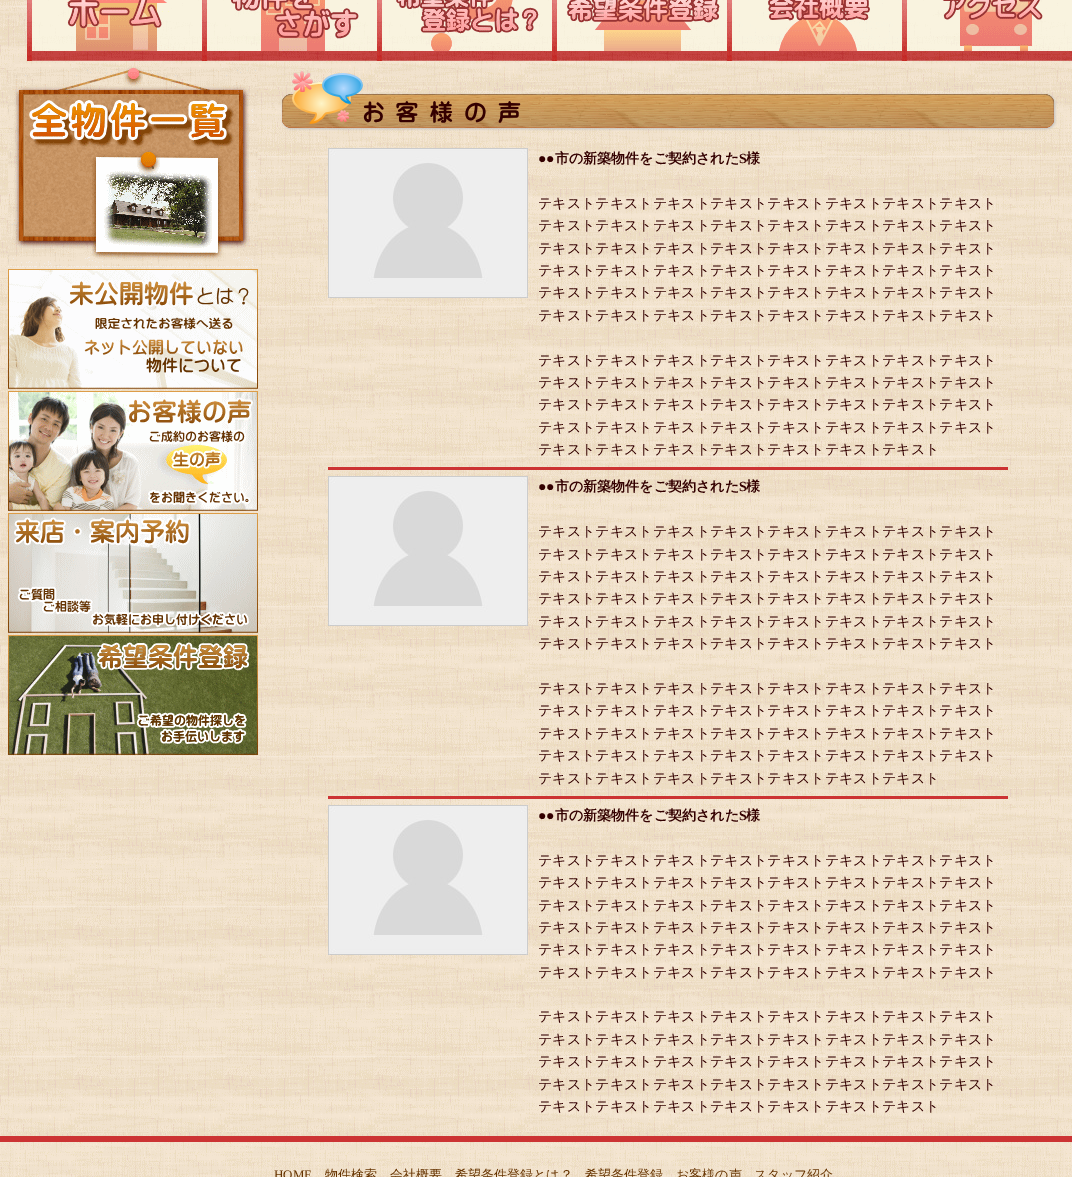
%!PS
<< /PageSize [1072 1177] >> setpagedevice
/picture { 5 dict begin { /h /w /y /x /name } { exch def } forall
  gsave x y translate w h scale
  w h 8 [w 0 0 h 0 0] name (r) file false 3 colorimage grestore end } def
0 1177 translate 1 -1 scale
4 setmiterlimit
1 setgray
0 0 1072 1177 rectfill
(img1.rgb) 0 1142 1072 35 picture
(img2.rgb) 0 0 1072 1136 picture
(img3.rgb) 27 0 5 61 picture
(img4.rgb) 32 0 170 61 picture
(img3.rgb) 202 0 5 61 picture
(img5.rgb) 207 0 170 61 picture
(img3.rgb) 377 0 5 61 picture
(img6.rgb) 382 0 170 61 picture
(img3.rgb) 552 0 5 61 picture
(img7.rgb) 557 0 170 61 picture
(img3.rgb) 727 0 5 61 picture
(img8.rgb) 732 0 170 61 picture
(img3.rgb) 902 0 5 61 picture
(img9.rgb) 907 0 165 61 picture
(img10.rgb) 8 67 250 200 picture
(img11.rgb) 8 269 250 120 picture
(img12.rgb) 8 391 250 120 picture
(img13.rgb) 8 513 250 120 picture
(img14.rgb) 8 635 250 120 picture
(img15.rgb) 281 71 776 60 picture
(img16.rgb) 328 148 200 150 picture
/LiberationSerif-Bold [14 0 0 -14 0 0] selectfont
0.2 0 0 setrgbcolor
538 163 moveto (●●) show
/WenQuanYiZenHei-Bold [14 0 0 -14 0 0] selectfont
555 163 moveto (市の新築物件をご契約された) show
/LiberationSerif-Bold [14 0 0 -14 0 0] selectfont
739 163 moveto (S) show
/WenQuanYiZenHei-Bold [14 0 0 -14 0 0] selectfont
746 163 moveto (様) show
/WenQuanYiZenHei-Medium [14 0 0 -14 0 0] selectfont
538 208 moveto (テキストテキストテキストテキストテキストテキストテキストテキスト) show
538 230 moveto (テキストテキストテキストテキストテキストテキストテキストテキスト) show
538 253 moveto (テキストテキストテキストテキストテキストテキストテキストテキスト) show
538 275 moveto (テキストテキストテキストテキストテキストテキストテキストテキスト) show
538 297 moveto (テキストテキストテキストテキストテキストテキストテキストテキスト) show
538 320 moveto (テキストテキストテキストテキストテキストテキストテキストテキスト) show
538 365 moveto (テキストテキストテキストテキストテキストテキストテキストテキスト) show
538 387 moveto (テキストテキストテキストテキストテキストテキストテキストテキスト) show
538 409 moveto (テキストテキストテキストテキストテキストテキストテキストテキスト) show
538 432 moveto (テキストテキストテキストテキストテキストテキストテキストテキスト) show
538 454 moveto (テキストテキストテキストテキストテキストテキストテキスト) show
0.8 0.2 0.2 setrgbcolor
328 467 680 3 rectfill
(img16.rgb) 328 476 200 150 picture
/LiberationSerif-Bold [14 0 0 -14 0 0] selectfont
0.2 0 0 setrgbcolor
538 491 moveto (●●) show
/WenQuanYiZenHei-Bold [14 0 0 -14 0 0] selectfont
555 491 moveto (市の新築物件をご契約された) show
/LiberationSerif-Bold [14 0 0 -14 0 0] selectfont
739 491 moveto (S) show
/WenQuanYiZenHei-Bold [14 0 0 -14 0 0] selectfont
746 491 moveto (様) show
/WenQuanYiZenHei-Medium [14 0 0 -14 0 0] selectfont
538 536 moveto (テキストテキストテキストテキストテキストテキストテキストテキスト) show
538 559 moveto (テキストテキストテキストテキストテキストテキストテキストテキスト) show
538 581 moveto (テキストテキストテキストテキストテキストテキストテキストテキスト) show
538 603 moveto (テキストテキストテキストテキストテキストテキストテキストテキスト) show
538 626 moveto (テキストテキストテキストテキストテキストテキストテキストテキスト) show
538 648 moveto (テキストテキストテキストテキストテキストテキストテキストテキスト) show
538 693 moveto (テキストテキストテキストテキストテキストテキストテキストテキスト) show
538 715 moveto (テキストテキストテキストテキストテキストテキストテキストテキスト) show
538 738 moveto (テキストテキストテキストテキストテキストテキストテキストテキスト) show
538 760 moveto (テキストテキストテキストテキストテキストテキストテキストテキスト) show
538 783 moveto (テキストテキストテキストテキストテキストテキストテキスト) show
0.8 0.2 0.2 setrgbcolor
328 796 680 3 rectfill
(img16.rgb) 328 805 200 150 picture
/LiberationSerif-Bold [14 0 0 -14 0 0] selectfont
0.2 0 0 setrgbcolor
538 820 moveto (●●) show
/WenQuanYiZenHei-Bold [14 0 0 -14 0 0] selectfont
555 820 moveto (市の新築物件をご契約された) show
/LiberationSerif-Bold [14 0 0 -14 0 0] selectfont
739 820 moveto (S) show
/WenQuanYiZenHei-Bold [14 0 0 -14 0 0] selectfont
746 820 moveto (様) show
/WenQuanYiZenHei-Medium [14 0 0 -14 0 0] selectfont
538 865 moveto (テキストテキストテキストテキストテキストテキストテキストテキスト) show
538 887 moveto (テキストテキストテキストテキストテキストテキストテキストテキスト) show
538 910 moveto (テキストテキストテキストテキストテキストテキストテキストテキスト) show
538 932 moveto (テキストテキストテキストテキストテキストテキストテキストテキスト) show
538 954 moveto (テキストテキストテキストテキストテキストテキストテキストテキスト) show
538 977 moveto (テキストテキストテキストテキストテキストテキストテキストテキスト) show
538 1021 moveto (テキストテキストテキストテキストテキストテキストテキストテキスト) show
538 1044 moveto (テキストテキストテキストテキストテキストテキストテキストテキスト) show
538 1066 moveto (テキストテキストテキストテキストテキストテキストテキストテキスト) show
538 1089 moveto (テキストテキストテキストテキストテキストテキストテキストテキスト) show
538 1111 moveto (テキストテキストテキストテキストテキストテキストテキスト) show
0.8 0.2 0.2 setrgbcolor
0 1136 1072 6 rectfill
/LiberationSerif-Regular [13 0 0 -13 0 0] selectfont
0.4 0.2 0 setrgbcolor
274 1179 moveto (HOME) show
/WenQuanYiZenHei-Medium [13 0 0 -13 0 0] selectfont
325 1179 moveto (物件検索) show
390 1179 moveto (会社概要) show
455 1179 moveto (希望条件登録とは？) show
585 1179 moveto (希望条件登録) show
676 1179 moveto (お客様の声) show
754 1179 moveto (スタッフ紹介) show
showpage
